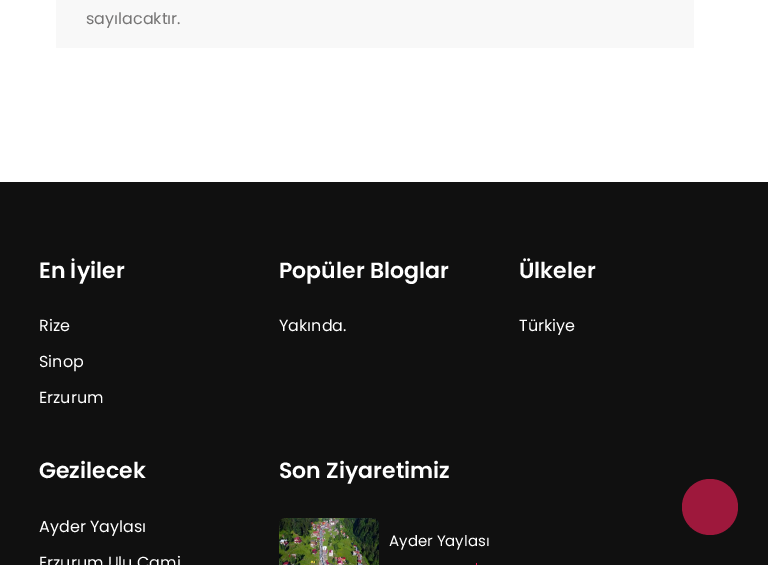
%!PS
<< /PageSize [768 565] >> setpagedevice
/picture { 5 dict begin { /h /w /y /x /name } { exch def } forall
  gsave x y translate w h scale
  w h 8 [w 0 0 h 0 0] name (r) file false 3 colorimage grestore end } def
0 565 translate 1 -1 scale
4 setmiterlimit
1 setgray
0 0 768 565 rectfill
0.973 setgray
56 0 638 48 rectfill
/Poppins-Regular [16 0 0 -16 0 0] selectfont
0.463 0.459 0.459 setrgbcolor
86 24 moveto (sayılacaktır.) show
0.063 setgray
0 182 768 383 rectfill
/Poppins-SemiBold [22 0 0 -22 0 0] selectfont
1 setgray
39 278 moveto (En İyiler) show
/Poppins-Regular [16 0 0 -16 0 0] selectfont
39 331 moveto (Rize) show
39 367 moveto (Sinop) show
39 403 moveto (Erzurum) show
/Poppins-SemiBold [22 0 0 -22 0 0] selectfont
279 278 moveto (Popüler Bloglar) show
/Poppins-Regular [16 0 0 -16 0 0] selectfont
279 331 moveto (Yakında.) show
/Poppins-SemiBold [22 0 0 -22 0 0] selectfont
519 278 moveto (Ülkeler) show
/Poppins-Regular [16 0 0 -16 0 0] selectfont
519 331 moveto (Türkiye) show
/Poppins-SemiBold [22 0 0 -22 0 0] selectfont
39 478 moveto (Gezilecek) show
/Poppins-Regular [16 0 0 -16 0 0] selectfont
39 532 moveto (Ayder Yaylası) show
39 568 moveto (Erzurum Ulu Cami) show
/Poppins-SemiBold [22 0 0 -22 0 0] selectfont
279 478 moveto (Son Ziyaretimiz) show
(img1.rgb) 279 518 100 47 picture
/Poppins-Regular [15 0 0 -15 0 0] selectfont
389 546 moveto (Ayder Yaylası) show
1 0.114 0.357 setrgbcolor
476 563 1 2 rectfill
0.62 0.094 0.235 setrgbcolor
newpath 710 507 28 0 360 arc closepath fill
showpage
